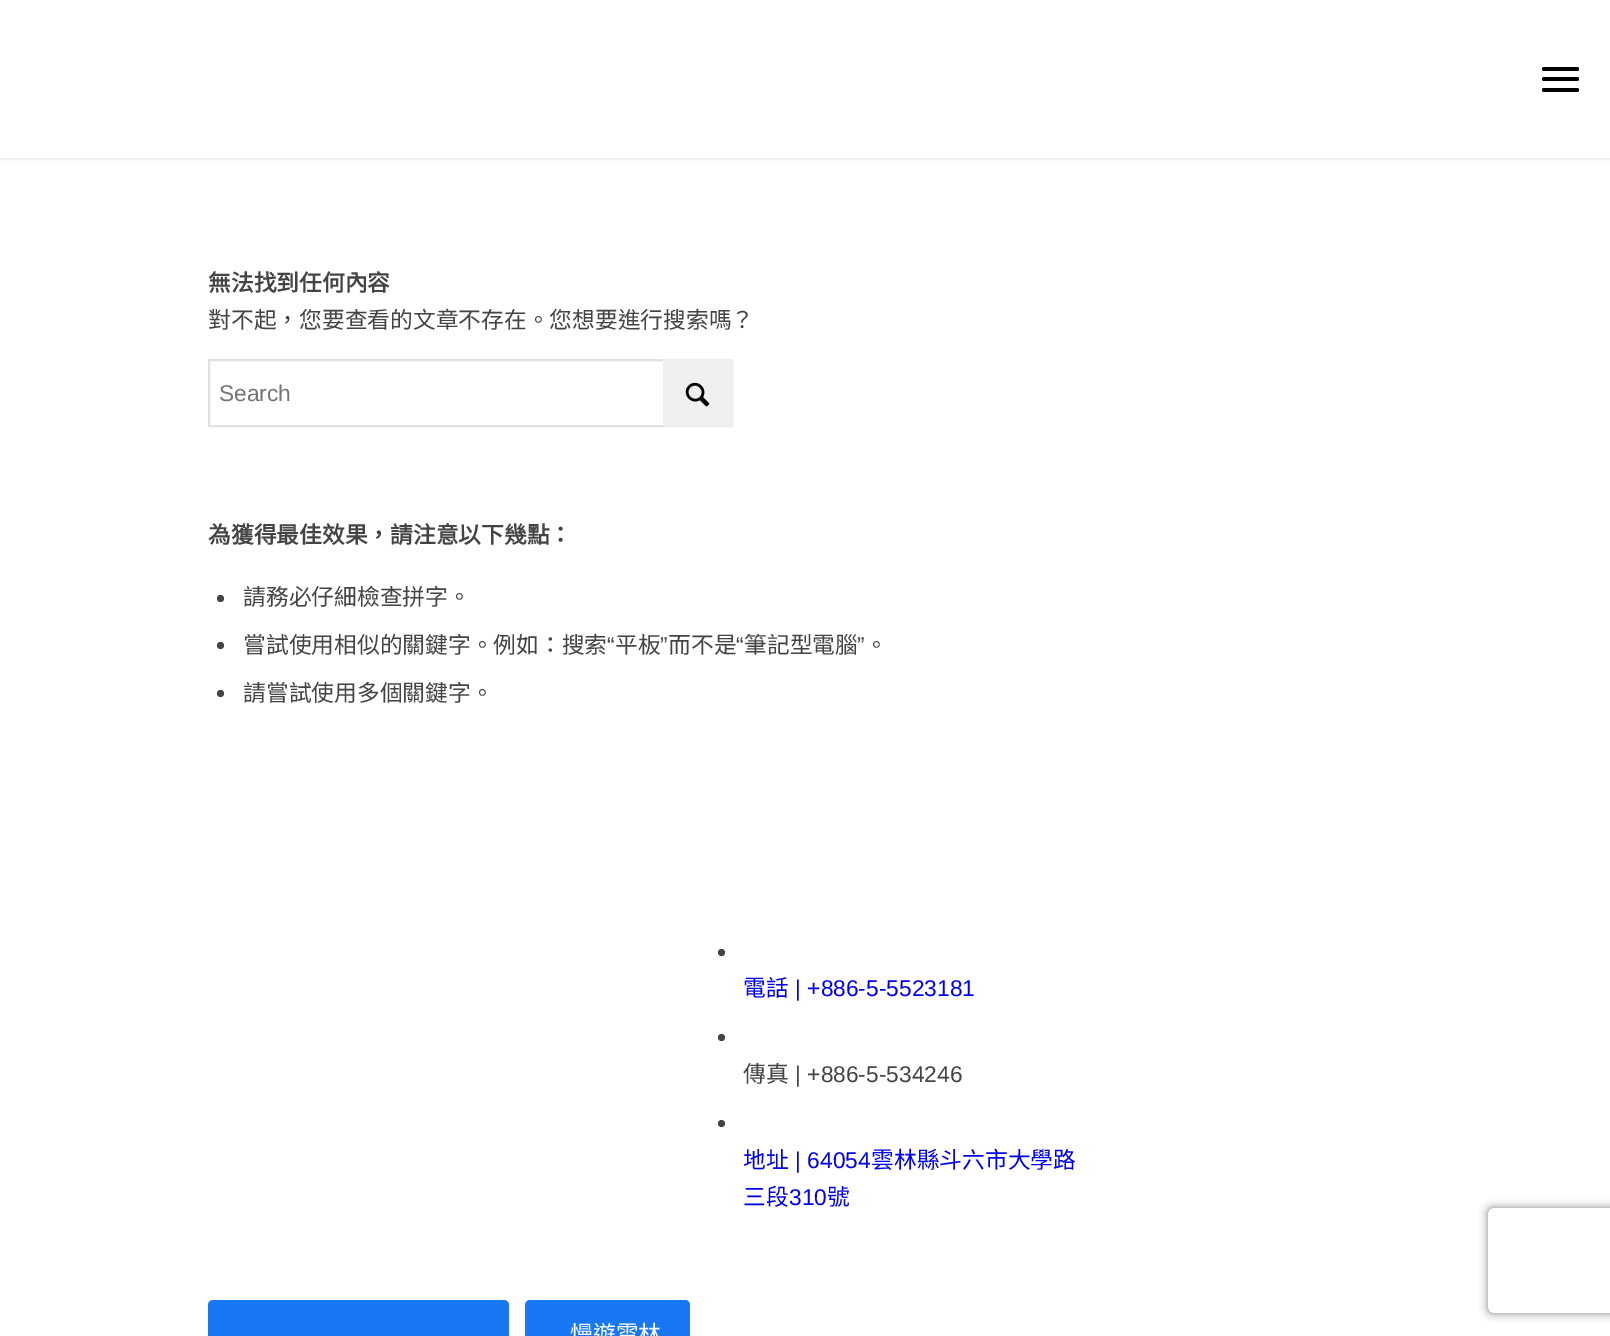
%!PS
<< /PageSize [1610 1336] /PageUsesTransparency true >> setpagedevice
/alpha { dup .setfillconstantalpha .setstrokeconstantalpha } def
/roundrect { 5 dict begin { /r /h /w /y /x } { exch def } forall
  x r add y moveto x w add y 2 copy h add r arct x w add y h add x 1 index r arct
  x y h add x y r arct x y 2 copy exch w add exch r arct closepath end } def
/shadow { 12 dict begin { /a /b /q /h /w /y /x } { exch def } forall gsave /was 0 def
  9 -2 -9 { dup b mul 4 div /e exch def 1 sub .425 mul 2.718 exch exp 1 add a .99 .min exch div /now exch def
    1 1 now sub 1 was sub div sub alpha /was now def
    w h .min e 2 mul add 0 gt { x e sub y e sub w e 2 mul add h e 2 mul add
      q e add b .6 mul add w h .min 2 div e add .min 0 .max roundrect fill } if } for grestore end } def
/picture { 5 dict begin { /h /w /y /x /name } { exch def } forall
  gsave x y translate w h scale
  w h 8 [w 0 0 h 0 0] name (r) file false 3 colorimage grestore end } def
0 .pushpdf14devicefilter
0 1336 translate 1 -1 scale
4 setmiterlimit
1 setgray
0 0 1610 1336 rectfill
gsave
newpath 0 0 moveto 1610 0 lineto 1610 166 lineto 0 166 lineto closepath 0 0 moveto 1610 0 lineto 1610 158 lineto 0 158 lineto closepath eoclip newpath
0 setgray
-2 -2 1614 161 0 2 0.1 shadow
grestore
0 setgray
1542 77 37 4 2 roundrect fill
1542 67 37 4 2 roundrect fill
1542 88 37 4 2 roundrect fill
/NotoSansCJKTC-Bold [22.75 0 0 -22.75 0 0] selectfont
0.267 setgray
208 291 moveto (無法找到任何內容) show
/NotoSansCJKTC-Regular [22.75 0 0 -22.75 0 0] selectfont
208 328 moveto (對不起，您要查看的文章不存在。您想要進行搜索嗎？) show
0.882 setgray
2 setlinewidth
209 360 523 66 rectstroke
0.937 setgray
663 359 70 68 rectfill
/LiberationSans-Regular [22.75 0 0 -22.75 0 0] selectfont
0.459 setgray
219 401 moveto (Search) show
(img1.rgb) 685 382 25 25 picture
/NotoSansCJKTC-Bold [22.75 0 0 -22.75 0 0] selectfont
0.267 setgray
208 543 moveto (為獲得最佳效果，請注意以下幾點：) show
newpath 220.5 598.5 3.5 0 360 arc closepath fill
/NotoSansCJKTC-Regular [22.75 0 0 -22.75 0 0] selectfont
243 605 moveto (請務必仔細檢查拼字。) show
newpath 220.5 645.5 3.5 0 360 arc closepath fill
243 653 moveto (嘗試使用相似的關鍵字。例如：搜索) show
/LiberationSans-Regular [22.75 0 0 -22.75 0 0] selectfont
607 653 moveto (“) show
/NotoSansCJKTC-Regular [22.75 0 0 -22.75 0 0] selectfont
615 653 moveto (平板) show
/LiberationSans-Regular [22.75 0 0 -22.75 0 0] selectfont
660 653 moveto (”) show
/NotoSansCJKTC-Regular [22.75 0 0 -22.75 0 0] selectfont
668 653 moveto (而不是) show
/LiberationSans-Regular [22.75 0 0 -22.75 0 0] selectfont
736 653 moveto (“) show
/NotoSansCJKTC-Regular [22.75 0 0 -22.75 0 0] selectfont
744 653 moveto (筆記型電腦) show
/LiberationSans-Regular [22.75 0 0 -22.75 0 0] selectfont
857 653 moveto (”) show
/NotoSansCJKTC-Regular [22.75 0 0 -22.75 0 0] selectfont
865 653 moveto (。) show
newpath 220.5 693.5 3.5 0 360 arc closepath fill
243 701 moveto (請嘗試使用多個關鍵字。) show
newpath 721.5 952.5 3.5 0 360 arc closepath fill
0 0 0.933 setrgbcolor
743 996 moveto (電話) show
/LiberationSans-Regular [22.75 0 0 -22.75 0 0] selectfont
795 996 moveto (| +886-5-5523181) show
0.267 setgray
newpath 721.5 1037.5 3.5 0 360 arc closepath fill
/NotoSansCJKTC-Regular [22.75 0 0 -22.75 0 0] selectfont
743 1082 moveto (傳真) show
/LiberationSans-Regular [22.75 0 0 -22.75 0 0] selectfont
795 1082 moveto (| +886-5-534246) show
newpath 721.5 1123.5 3.5 0 360 arc closepath fill
/NotoSansCJKTC-Regular [22.75 0 0 -22.75 0 0] selectfont
0 0 0.933 setrgbcolor
743 1168 moveto (地址) show
/LiberationSans-Regular [22.75 0 0 -22.75 0 0] selectfont
795 1168 moveto (| 64054) show
/NotoSansCJKTC-Regular [22.75 0 0 -22.75 0 0] selectfont
871 1168 moveto (雲林縣斗六市大學路) show
743 1205 moveto (三段) show
/LiberationSans-Regular [22.75 0 0 -22.75 0 0] selectfont
789 1205 moveto (310) show
/NotoSansCJKTC-Regular [22.75 0 0 -22.75 0 0] selectfont
827 1205 moveto (號) show
0.094 0.467 0.949 setrgbcolor
208 1300 301 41 5 roundrect fill
525 1300 165 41 5 roundrect fill
1 setgray
570 1342 moveto (慢遊雲林) show
gsave
newpath 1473 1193 moveto 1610 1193 lineto 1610 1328 lineto 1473 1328 lineto closepath 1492 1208 moveto 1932 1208 lineto 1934 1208 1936 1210 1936 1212 curveto 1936 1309 lineto 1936 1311 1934 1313 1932 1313 curveto 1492 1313 lineto 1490 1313 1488 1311 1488 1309 curveto 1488 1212 lineto 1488 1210 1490 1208 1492 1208 curveto closepath eoclip newpath
0.502 setgray
1488 1208 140 105 4 4.5 1 shadow
grestore
.poppdf14devicefilter showpage
